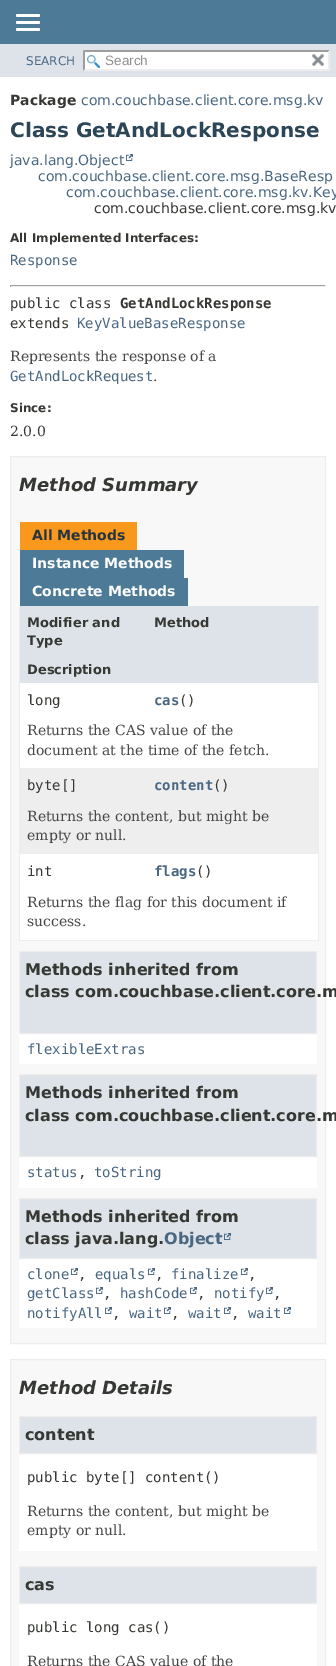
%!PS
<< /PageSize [336 1666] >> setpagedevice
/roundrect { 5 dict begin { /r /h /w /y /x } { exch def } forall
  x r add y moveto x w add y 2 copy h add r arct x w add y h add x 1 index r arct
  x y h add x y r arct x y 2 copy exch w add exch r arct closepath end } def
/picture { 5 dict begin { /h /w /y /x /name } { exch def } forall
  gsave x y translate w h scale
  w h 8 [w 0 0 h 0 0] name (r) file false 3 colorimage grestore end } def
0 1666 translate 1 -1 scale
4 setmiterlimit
1 setgray
0 0 336 1666 rectfill
0.302 0.478 0.592 setrgbcolor
0 0 336 44 rectfill
1 setgray
16 14 24 3 1.5 roundrect fill
16 21 24 3 1.5 roundrect fill
16 28 24 3 1.5 roundrect fill
0.871 0.89 0.914 setrgbcolor
0 44 336 33 rectfill
/DejaVuSans-Regular [12 0 0 -12 0 0] selectfont
0.29 0.404 0.51 setrgbcolor
26 65 moveto (SEARCH) show
1 setgray
83 50 247 21 rectfill
(img1.rgb) 87 55 13 13 picture
0.62 setgray
newpath 83 50 moveto 330 50 lineto 328 52 lineto 85 52 lineto closepath fill
0.929 setgray
newpath 330 50 moveto 330 71 lineto 328 69 lineto 328 52 lineto closepath fill
newpath 330 71 moveto 83 71 lineto 85 69 lineto 328 69 lineto closepath fill
0.62 setgray
newpath 83 71 moveto 83 50 lineto 85 52 lineto 85 69 lineto closepath fill
/LiberationSans-Regular [13.5 0 0 -13.5 0 0] selectfont
0.565 setgray
105 65 moveto (Search) show
(img2.rgb) 312 53 12 13 picture
/DejaVuSans-Bold [14 0 0 -14 0 0] selectfont
0.208 0.22 0.2 setrgbcolor
10 105 moveto (Package) show
/DejaVuSans-Regular [14 0 0 -14 0 0] selectfont
0.29 0.404 0.51 setrgbcolor
81 105 moveto (com.couchbase.client.core.msg.kv) show
/DejaVuSans-Bold [20 0 0 -20 0 0] selectfont
0.173 0.271 0.341 setrgbcolor
10 137 moveto (Class GetAndLockResponse) show
/DejaVuSans-Regular [14 0 0 -14 0 0] selectfont
0.29 0.404 0.51 setrgbcolor
10 165 moveto (java.lang.Object) show
(img3.rgb) 126 154 7 7 picture
38 181 moveto (com.couchbase.client.core.msg.BaseResp) show
66 197 moveto (com.couchbase.client.core.msg.kv.Key) show
0.208 0.22 0.2 setrgbcolor
94 213 moveto (com.couchbase.client.core.msg.kv) show
/DejaVuSans-Bold [12 0 0 -12 0 0] selectfont
10 242 moveto (All Implemented Interfaces:) show
/DejaVuSansMono-Regular [14 0 0 -14 0 0] selectfont
0.29 0.404 0.51 setrgbcolor
10 265 moveto (Response) show
0.624 setgray
10 285 316 1 rectfill
0.933 setgray
325 285 1 2 rectfill
10 286 316 1 rectfill
0.624 setgray
10 285 1 2 rectfill
0.208 0.22 0.2 setrgbcolor
10 308 moveto (public class) show
/DejaVuSansMono-Bold [14 0 0 -14 0 0] selectfont
120 308 moveto (GetAndLockResponse) show
/DejaVuSansMono-Regular [14 0 0 -14 0 0] selectfont
10 328 moveto (extends) show
0.29 0.404 0.51 setrgbcolor
77 328 moveto (KeyValueBaseResponse) show
/DejaVuSerif-Regular [14 0 0 -14 0 0] selectfont
0.278 setgray
10 361 moveto (Represents the response of a) show
/DejaVuSansMono-Regular [14 0 0 -14 0 0] selectfont
0.29 0.404 0.51 setrgbcolor
10 381 moveto (GetAndLockRequest) show
/DejaVuSerif-Regular [14 0 0 -14 0 0] selectfont
0.278 setgray
153 381 moveto (.) show
/DejaVuSans-Bold [12 0 0 -12 0 0] selectfont
0.208 0.22 0.2 setrgbcolor
10 412 moveto (Since:) show
/DejaVuSerif-Regular [14 0 0 -14 0 0] selectfont
10 436 moveto (2.0.0) show
0.973 setgray
newpath 10.5 456.5 moveto 325.5 456.5 lineto 325.5 1343.5 lineto 10.5 1343.5 lineto closepath gsave fill grestore
0.929 setgray
stroke
/DejaVuSans-BoldItalic [18 0 0 -18 0 0] selectfont
0.208 0.22 0.2 setrgbcolor
19 491 moveto (Method Summary) show
0.973 0.596 0.114 setrgbcolor
20 522 117 28 rectfill
/DejaVuSans-Bold [14 0 0 -14 0 0] selectfont
0.145 0.204 0.255 setrgbcolor
32 540 moveto (All Methods) show
0.302 0.478 0.592 setrgbcolor
20 550 164 28 rectfill
1 setgray
32 568 moveto (Instance Methods) show
0.302 0.478 0.592 setrgbcolor
20 578 168 28 rectfill
1 setgray
32 596 moveto (Concrete Methods) show
0.929 setgray
318 606 1 335 rectfill
19 940 300 1 rectfill
19 606 1 335 rectfill
0.871 0.89 0.914 setrgbcolor
20 606 298 77 rectfill
/DejaVuSans-Bold [13 0 0 -13 0 0] selectfont
0.208 0.22 0.2 setrgbcolor
27 627 moveto (Modifier and) show
27 645 moveto (Type) show
154 627 moveto (Method) show
27 674 moveto (Description) show
1 setgray
20 683 298 85 rectfill
/DejaVuSansMono-Regular [14 0 0 -14 0 0] selectfont
0.208 0.22 0.2 setrgbcolor
27 705 moveto (long) show
/DejaVuSansMono-Bold [14 0 0 -14 0 0] selectfont
0.29 0.404 0.51 setrgbcolor
154 705 moveto (cas) show
/DejaVuSansMono-Regular [14 0 0 -14 0 0] selectfont
0.208 0.22 0.2 setrgbcolor
179 705 moveto (\(\)) show
/DejaVuSerif-Regular [14 0 0 -14 0 0] selectfont
0.278 setgray
27 735 moveto (Returns the CAS value of the) show
27 755 moveto (document at the time of the fetch.) show
0.933 0.933 0.937 setrgbcolor
20 768 298 86 rectfill
/DejaVuSansMono-Regular [14 0 0 -14 0 0] selectfont
0.208 0.22 0.2 setrgbcolor
27 790 moveto (byte[]) show
/DejaVuSansMono-Bold [14 0 0 -14 0 0] selectfont
0.29 0.404 0.51 setrgbcolor
154 790 moveto (content) show
/DejaVuSansMono-Regular [14 0 0 -14 0 0] selectfont
0.208 0.22 0.2 setrgbcolor
213 790 moveto (\(\)) show
/DejaVuSerif-Regular [14 0 0 -14 0 0] selectfont
0.278 setgray
27 821 moveto (Returns the content, but might be) show
27 840 moveto (empty or null.) show
1 setgray
20 854 298 86 rectfill
/DejaVuSansMono-Regular [14 0 0 -14 0 0] selectfont
0.208 0.22 0.2 setrgbcolor
27 876 moveto (int) show
/DejaVuSansMono-Bold [14 0 0 -14 0 0] selectfont
0.29 0.404 0.51 setrgbcolor
154 876 moveto (flags) show
/DejaVuSansMono-Regular [14 0 0 -14 0 0] selectfont
0.208 0.22 0.2 setrgbcolor
196 876 moveto (\(\)) show
/DejaVuSerif-Regular [14 0 0 -14 0 0] selectfont
0.278 setgray
27 907 moveto (Returns the flag for this document if) show
27 926 moveto (success.) show
1 setgray
19 1034 298 30 rectfill
0.871 0.89 0.914 setrgbcolor
newpath 19.5 951.5 moveto 316.5 951.5 lineto 316.5 1033.5 lineto 19.5 1033.5 lineto closepath gsave fill grestore
0.929 setgray
stroke
/DejaVuSans-Bold [16 0 0 -16 0 0] selectfont
0.208 0.22 0.2 setrgbcolor
25 975 moveto (Methods inherited from) show
25 997 moveto (class com.couchbase.client.core.m) show
/DejaVuSansMono-Regular [14 0 0 -14 0 0] selectfont
0.29 0.404 0.51 setrgbcolor
27 1054 moveto (flexibleExtras) show
1 setgray
19 1157 298 31 rectfill
0.871 0.89 0.914 setrgbcolor
newpath 19.5 1074.5 moveto 316.5 1074.5 lineto 316.5 1156.5 lineto 19.5 1156.5 lineto closepath gsave fill grestore
0.929 setgray
stroke
/DejaVuSans-Bold [16 0 0 -16 0 0] selectfont
0.208 0.22 0.2 setrgbcolor
25 1098 moveto (Methods inherited from) show
25 1121 moveto (class com.couchbase.client.core.m) show
/DejaVuSansMono-Regular [14 0 0 -14 0 0] selectfont
0.29 0.404 0.51 setrgbcolor
27 1177 moveto (status) show
0.208 0.22 0.2 setrgbcolor
78 1177 moveto (,) show
0.29 0.404 0.51 setrgbcolor
94 1177 moveto (toString) show
1 setgray
19 1259 298 69 rectfill
0.871 0.89 0.914 setrgbcolor
newpath 19.5 1198.5 moveto 316.5 1198.5 lineto 316.5 1258.5 lineto 19.5 1258.5 lineto closepath gsave fill grestore
0.929 setgray
stroke
/DejaVuSans-Bold [16 0 0 -16 0 0] selectfont
0.208 0.22 0.2 setrgbcolor
25 1222 moveto (Methods inherited from) show
25 1244 moveto (class java.lang.) show
0.29 0.404 0.51 setrgbcolor
164 1244 moveto (Object) show
(img4.rgb) 224 1233 7 7 picture
/DejaVuSansMono-Regular [14 0 0 -14 0 0] selectfont
27 1279 moveto (clone) show
(img3.rgb) 71 1268 7 7 picture
0.208 0.22 0.2 setrgbcolor
78 1279 moveto (,) show
0.29 0.404 0.51 setrgbcolor
95 1279 moveto (equals) show
(img3.rgb) 148 1268 7 7 picture
0.208 0.22 0.2 setrgbcolor
155 1279 moveto (,) show
0.29 0.404 0.51 setrgbcolor
171 1279 moveto (finalize) show
(img3.rgb) 241 1268 7 7 picture
0.208 0.22 0.2 setrgbcolor
248 1279 moveto (,) show
0.29 0.404 0.51 setrgbcolor
27 1298 moveto (getClass) show
(img3.rgb) 96 1287 7 7 picture
0.208 0.22 0.2 setrgbcolor
103 1298 moveto (,) show
0.29 0.404 0.51 setrgbcolor
120 1298 moveto (hashCode) show
(img3.rgb) 190 1287 7 7 picture
0.208 0.22 0.2 setrgbcolor
197 1298 moveto (,) show
0.29 0.404 0.51 setrgbcolor
214 1298 moveto (notify) show
(img3.rgb) 266 1287 7 7 picture
0.208 0.22 0.2 setrgbcolor
273 1298 moveto (,) show
0.29 0.404 0.51 setrgbcolor
27 1318 moveto (notifyAll) show
(img3.rgb) 105 1307 7 7 picture
0.208 0.22 0.2 setrgbcolor
112 1318 moveto (,) show
0.29 0.404 0.51 setrgbcolor
129 1318 moveto (wait) show
(img3.rgb) 164 1307 7 7 picture
0.208 0.22 0.2 setrgbcolor
171 1318 moveto (,) show
0.29 0.404 0.51 setrgbcolor
188 1318 moveto (wait) show
(img3.rgb) 224 1307 7 7 picture
0.208 0.22 0.2 setrgbcolor
231 1318 moveto (,) show
0.29 0.404 0.51 setrgbcolor
248 1318 moveto (wait) show
(img3.rgb) 284 1307 7 7 picture
0.973 setgray
newpath 10.5 1359.5 moveto 325.5 1359.5 lineto 325.5 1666.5 lineto 10.5 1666.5 lineto closepath gsave fill grestore
0.929 setgray
stroke
/DejaVuSans-BoldItalic [18 0 0 -18 0 0] selectfont
0.208 0.22 0.2 setrgbcolor
19 1394 moveto (Method Details) show
1 setgray
19 1454 298 97 rectfill
0.871 0.89 0.914 setrgbcolor
newpath 19.5 1416.5 moveto 316.5 1416.5 lineto 316.5 1453.5 lineto 19.5 1453.5 lineto closepath gsave fill grestore
0.929 setgray
stroke
/DejaVuSans-Bold [16 0 0 -16 0 0] selectfont
0.208 0.22 0.2 setrgbcolor
25 1440 moveto (content) show
/DejaVuSansMono-Regular [14 0 0 -14 0 0] selectfont
27 1482 moveto (public byte[] content\(\)) show
/DejaVuSerif-Regular [14 0 0 -14 0 0] selectfont
0.278 setgray
27 1516 moveto (Returns the content, but might be) show
27 1535 moveto (empty or null.) show
1 setgray
19 1604 298 62 rectfill
0.871 0.89 0.914 setrgbcolor
newpath 19.5 1566.5 moveto 316.5 1566.5 lineto 316.5 1603.5 lineto 19.5 1603.5 lineto closepath gsave fill grestore
0.929 setgray
stroke
/DejaVuSans-Bold [16 0 0 -16 0 0] selectfont
0.208 0.22 0.2 setrgbcolor
25 1590 moveto (cas) show
/DejaVuSansMono-Regular [14 0 0 -14 0 0] selectfont
27 1632 moveto (public long cas\(\)) show
/DejaVuSerif-Regular [14 0 0 -14 0 0] selectfont
0.278 setgray
27 1666 moveto (Returns the CAS value of the) show
showpage
